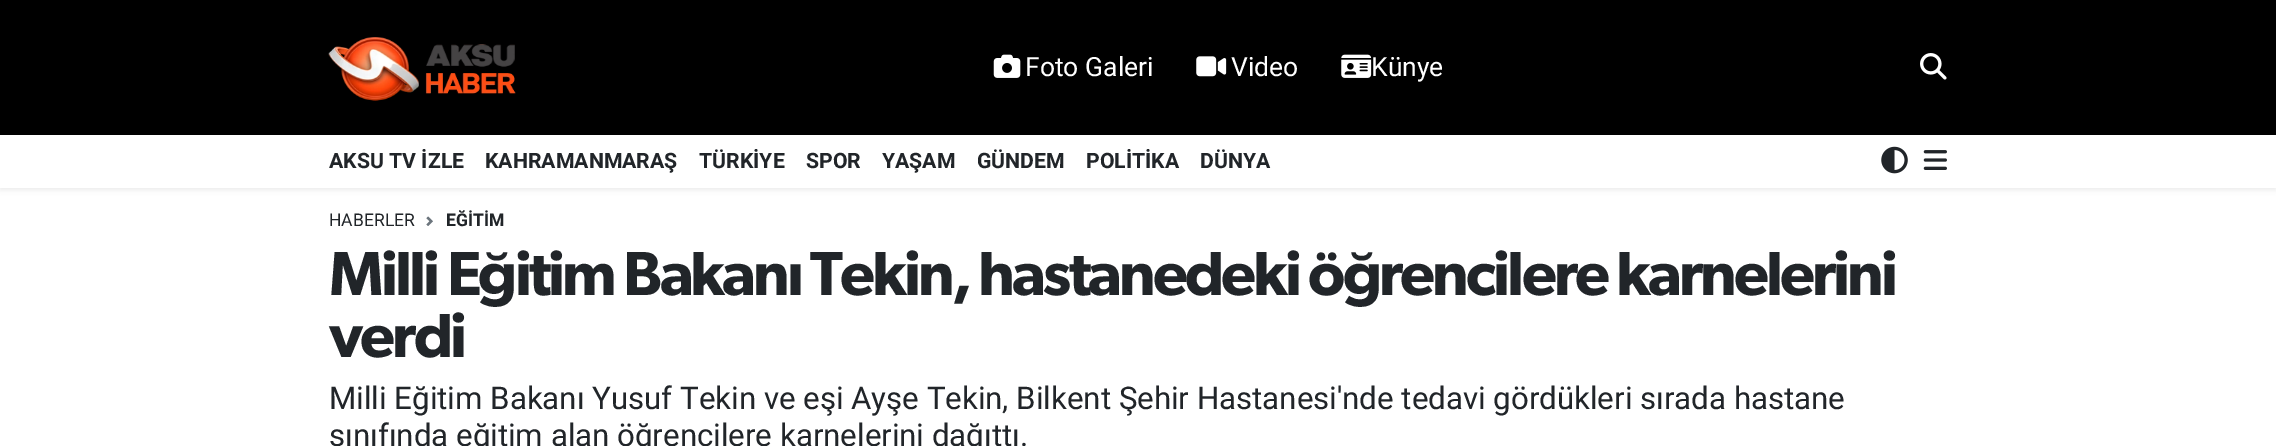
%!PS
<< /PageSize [2276 446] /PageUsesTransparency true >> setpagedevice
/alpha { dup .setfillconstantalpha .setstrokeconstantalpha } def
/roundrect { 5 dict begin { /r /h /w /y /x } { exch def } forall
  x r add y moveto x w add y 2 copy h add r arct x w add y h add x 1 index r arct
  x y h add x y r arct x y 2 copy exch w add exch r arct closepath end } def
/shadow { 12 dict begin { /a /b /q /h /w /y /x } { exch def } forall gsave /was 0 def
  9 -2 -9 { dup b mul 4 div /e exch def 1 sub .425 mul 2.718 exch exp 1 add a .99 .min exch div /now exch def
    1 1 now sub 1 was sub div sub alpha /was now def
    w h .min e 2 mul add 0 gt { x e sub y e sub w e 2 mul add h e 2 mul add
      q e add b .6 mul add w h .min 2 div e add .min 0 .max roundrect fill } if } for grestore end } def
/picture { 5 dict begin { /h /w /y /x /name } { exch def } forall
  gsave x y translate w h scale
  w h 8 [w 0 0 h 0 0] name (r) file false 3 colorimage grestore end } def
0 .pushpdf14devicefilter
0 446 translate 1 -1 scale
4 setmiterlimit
1 setgray
0 0 2276 446 rectfill
0 setgray
0 0 2276 135 rectfill
(img1.rgb) 328 37 188 64 picture
(img2.rgb) 993 54 28 24 picture
/Roboto-Regular [26.5 0 0 -26.5 0 0] selectfont
1 setgray
1025 76 moveto (Foto Galeri) show
(img3.rgb) 1196 56 31 21 picture
1231 76 moveto (Video) show
(img4.rgb) 1341 54 31 24 picture
1371 76 moveto (Künye) show
(img5.rgb) 1920 53 27 27 picture
0 setgray
0 138 2276 52 0 2.5 0.07 shadow
1 setgray
0 135 2276 53 rectfill
/Roboto-Bold [21.25 0 0 -21.25 0 0] selectfont
0.129 0.145 0.161 setrgbcolor
329 168 moveto (AKSU TV İZLE) show
485 168 moveto (KAHRAMANMARAŞ) show
699 168 moveto (TÜRKİYE) show
806 168 moveto (SPOR) show
882 168 moveto (YAŞAM) show
977 168 moveto (GÜNDEM) show
1086 168 moveto (POLİTİKA) show
1200 168 moveto (DÜNYA) show
(img6.rgb) 1881 146 27 28 picture
(img7.rgb) 1923 150 24 20 picture
/Roboto-Regular [17.5 0 0 -17.5 0 0] selectfont
329 226 moveto (HABERLER) show
(img8.rgb) 426 216 7 10 picture
/Roboto-Bold [17.5 0 0 -17.5 0 0] selectfont
446 226 moveto (EĞİTİM) show
/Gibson-SemiBold [62.5 0 0 -62.5 0 0] selectfont
329 295 moveto -2.88 0 (Milli Eğitim Bakanı Tekin, hastanedeki öğrencilere karnelerini) ashow
329 357 moveto -2.88 0 (verdi) ashow
/Roboto-Regular [31.25 0 0 -31.25 0 0] selectfont
329 409 moveto (Milli Eğitim Bakanı Yusuf Tekin ve eşi Ayşe Tekin, Bilkent Şehir Hastanesi'nde tedavi gördükleri sırada hastane) show
329 446 moveto (sınıfında eğitim alan öğrencilere karnelerini dağıttı.) show
.poppdf14devicefilter showpage
